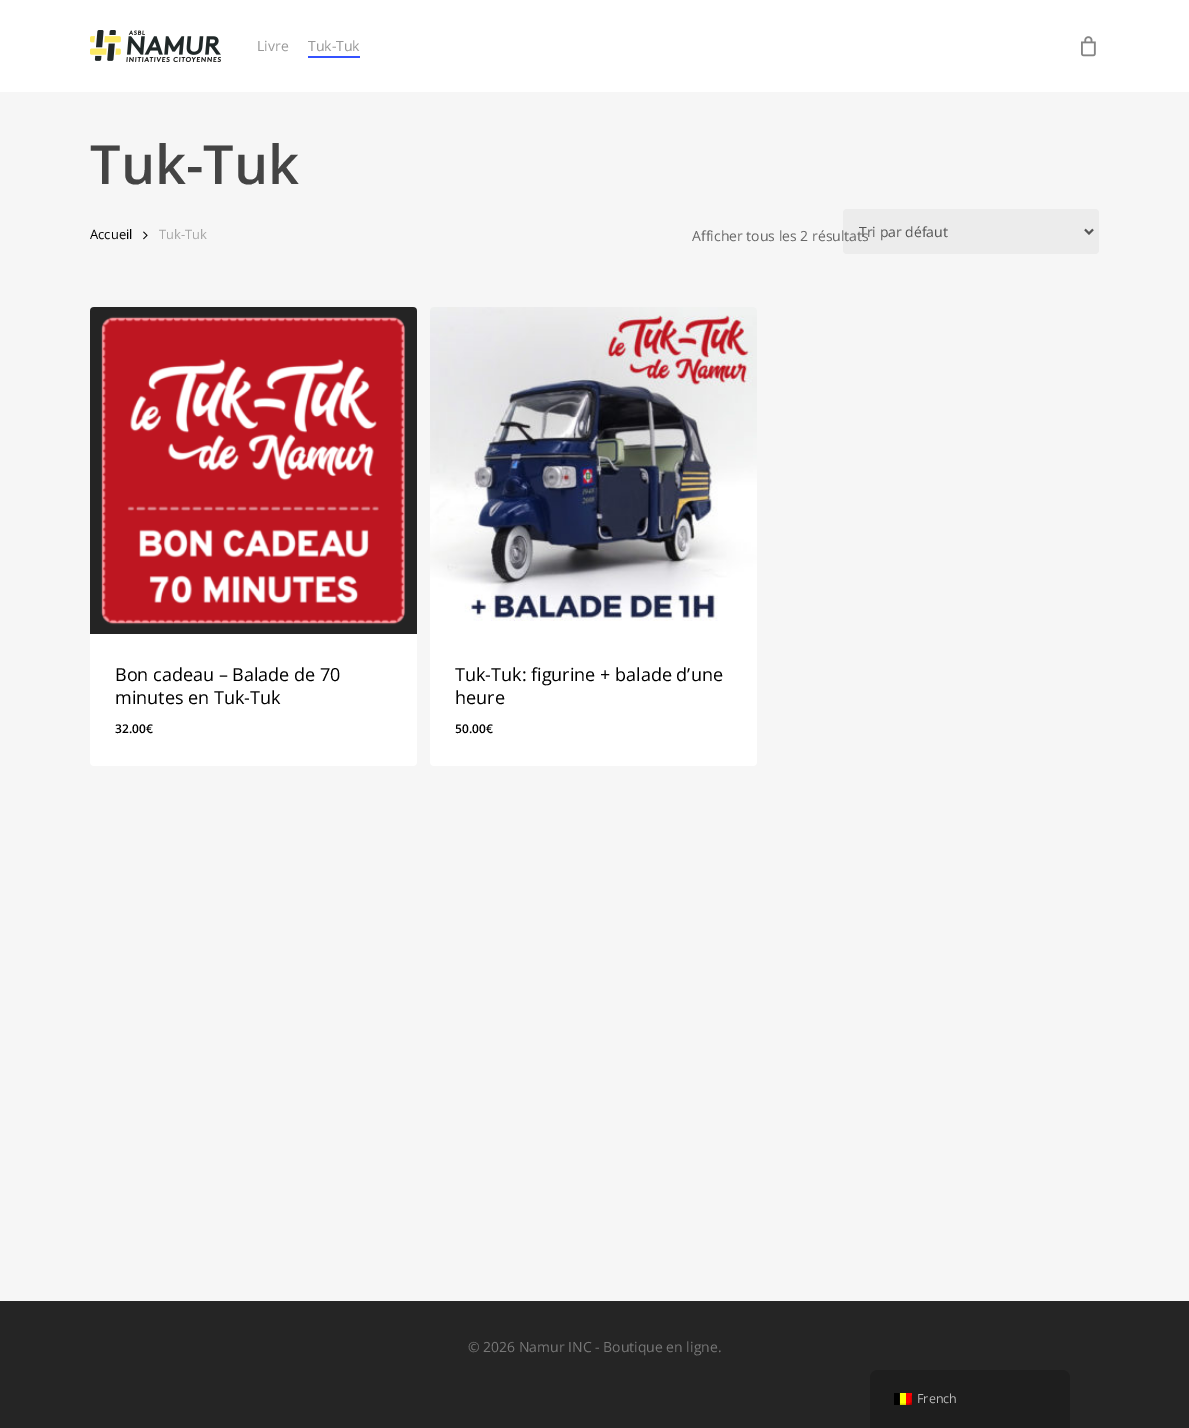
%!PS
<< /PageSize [1189 1428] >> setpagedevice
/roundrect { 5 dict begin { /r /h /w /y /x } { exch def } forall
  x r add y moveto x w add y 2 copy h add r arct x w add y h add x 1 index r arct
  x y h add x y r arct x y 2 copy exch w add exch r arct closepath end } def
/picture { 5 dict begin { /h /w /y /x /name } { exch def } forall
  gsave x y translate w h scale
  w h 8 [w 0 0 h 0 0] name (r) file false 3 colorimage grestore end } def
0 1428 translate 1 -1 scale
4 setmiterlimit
1 setgray
0 0 1189 1428 rectfill
(img1.rgb) 90 30 131 32 picture
/OpenSans-Regular [14 0 0 -14 0 0] selectfont
0.6 setgray
257 51 moveto (Livre) show
308 51 moveto (Tuk-Tuk) show
0.204 0.322 1 setrgbcolor
308 56 52 2 rectfill
(img2.rgb) 1081 36 15 21 picture
0.965 setgray
0 92 1189 1209 rectfill
/OpenSans-SemiBold [54 0 0 -54 0 0] selectfont
0.267 setgray
90 184 moveto (Tuk-Tuk) show
/OpenSans-Regular [13 0 0 -13 0 0] selectfont
0 setgray
90 239 moveto (Accueil) show
(img3.rgb) 143 231 5 9 picture
0.655 setgray
159 239 moveto (Tuk-Tuk) show
0.925 setgray
843 209 256 45 4 roundrect fill
/OpenSans-Regular [14 0 0 -14 0 0] selectfont
0.333 setgray
859 237 moveto (Tri par défaut) show
0.404 setgray
692 241 moveto (Afficher tous les 2 résultats) show
0.333 setgray
2 setlinewidth
newpath 1085 229.5 moveto 1089 233.5 lineto 1093 229.5 lineto stroke
1 setgray
90 307 327 459 4 roundrect fill
(img4.rgb) 90 307 327 327 picture
/OpenSans-Regular [18 0 0 -18 0 0] selectfont
0 setgray
115 681 moveto (Bon cadeau – Balade de 70) show
115 704 moveto (minutes en Tuk-Tuk) show
/OpenSans-SemiBold [12 0 0 -12 0 0] selectfont
115 733 moveto (32.00€) show
1 setgray
430 307 327 459 4 roundrect fill
(img5.rgb) 430 307 327 314 picture
/OpenSans-Regular [18 0 0 -18 0 0] selectfont
0 setgray
455 681 moveto (Tuk-Tuk: figurine + balade d’une) show
455 704 moveto (heure) show
/OpenSans-SemiBold [12 0 0 -12 0 0] selectfont
455 733 moveto (50.00€) show
0.145 setgray
0 1301 1189 127 rectfill
/OpenSans-Regular [14 0 0 -14 0 0] selectfont
0.467 setgray
468 1352 moveto (© 2026 Namur INC - Boutique en ligne.) show
0.118 setgray
newpath 878 1370 moveto 1062 1370 lineto 1066.5 1370 1070 1373.5 1070 1378 curveto 1070 1428 lineto 870 1428 lineto 870 1378 lineto 870 1373.5 873.5 1370 878 1370 curveto closepath fill
(img6.rgb) 894 1393 18 12 picture
/OpenSans-Regular [12.5 0 0 -12.5 0 0] selectfont
0.741 setgray
917 1403 moveto (French) show
showpage
